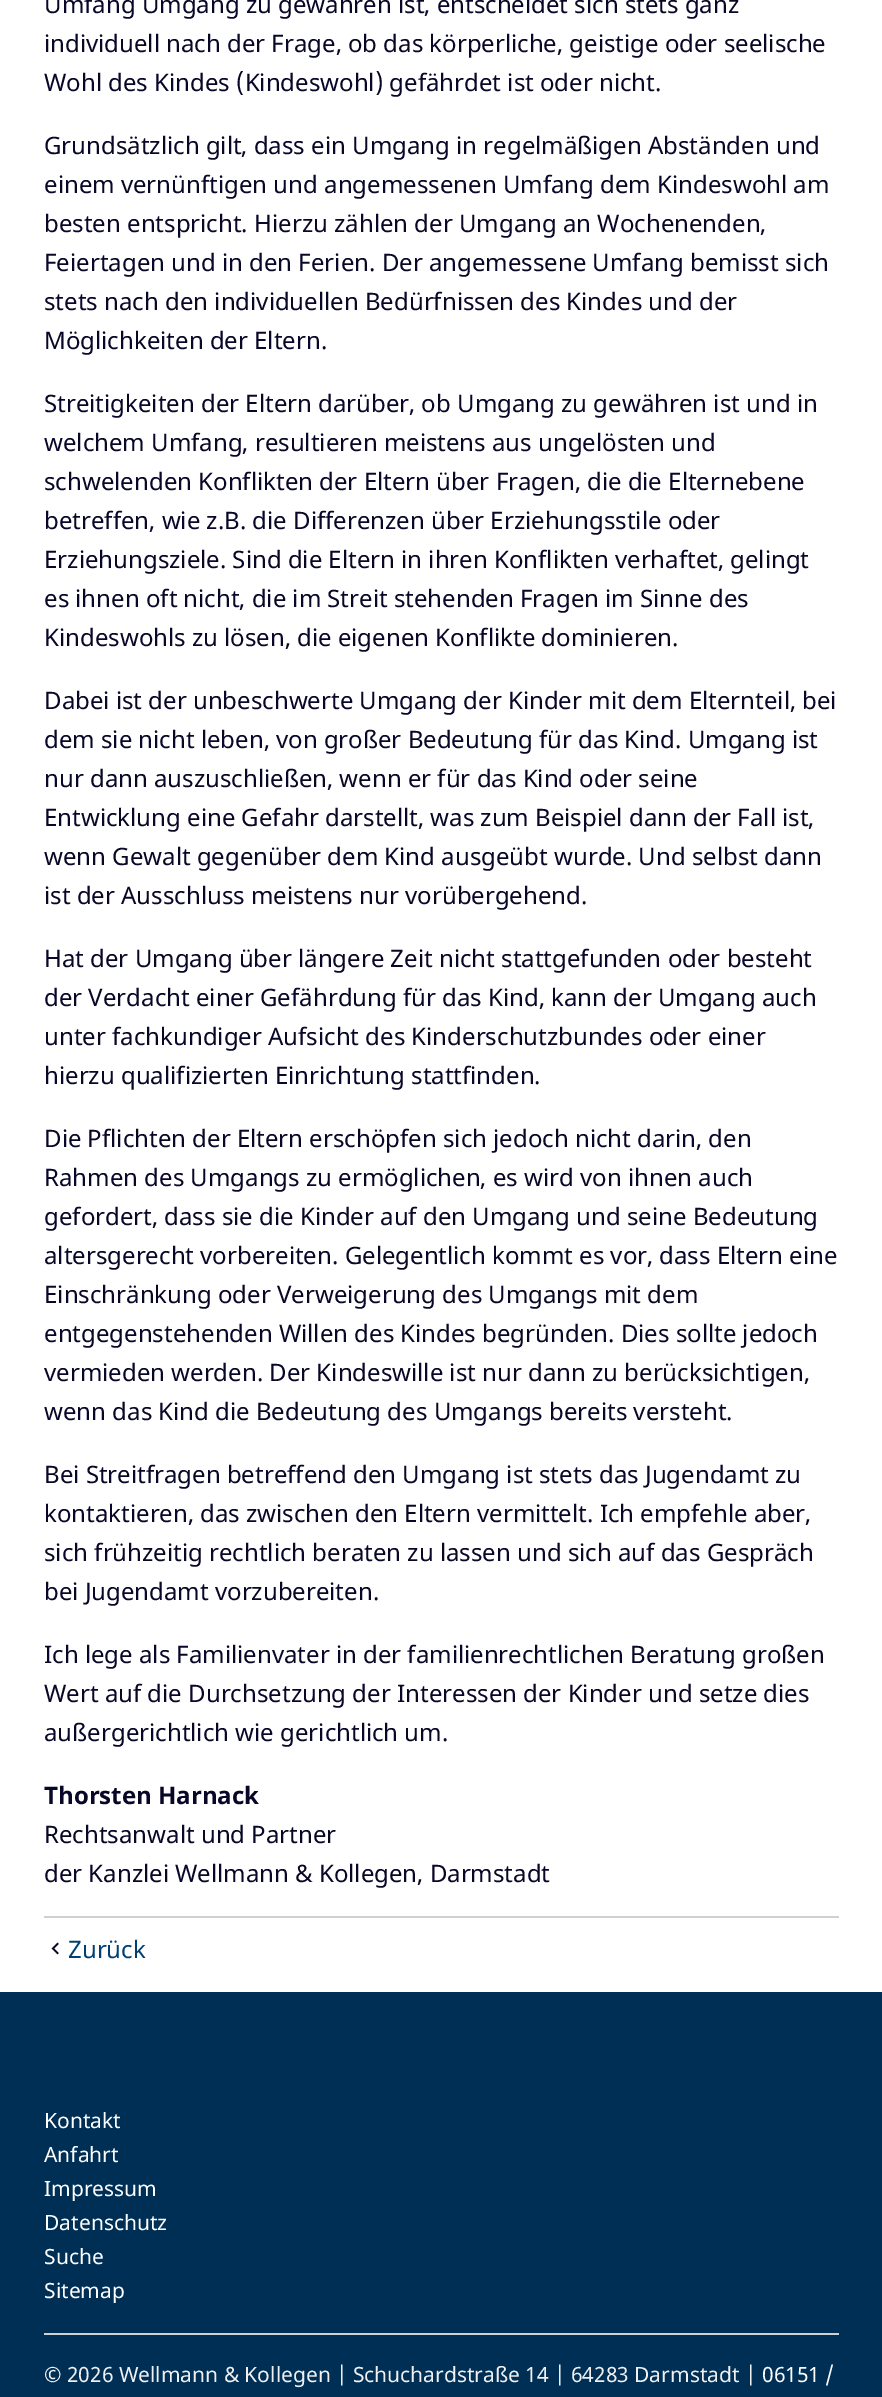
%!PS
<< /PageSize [882 2397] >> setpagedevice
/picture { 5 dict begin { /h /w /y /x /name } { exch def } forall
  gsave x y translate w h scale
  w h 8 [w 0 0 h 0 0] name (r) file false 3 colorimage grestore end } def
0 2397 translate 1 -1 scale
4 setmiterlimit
1 setgray
0 0 882 2397 rectfill
/NotoSans-Regular [24 0 0 -24 0 0] selectfont
0.035 0.027 0.153 setrgbcolor
44 13 moveto (Umfang Umgang zu gewähren ist, entscheidet sich stets ganz) show
44 52 moveto (individuell nach der Frage, ob das körperliche, geistige oder seelische) show
44 91 moveto (Wohl des Kindes \(Kindeswohl\) gefährdet ist oder nicht.) show
44 154 moveto (Grundsätzlich gilt, dass ein Umgang in regelmäßigen Abständen und) show
44 193 moveto (einem vernünftigen und angemessenen Umfang dem Kindeswohl am) show
44 232 moveto (besten entspricht. Hierzu zählen der Umgang an Wochenenden,) show
44 271 moveto (Feiertagen und in den Ferien. Der angemessene Umfang bemisst sich) show
44 310 moveto (stets nach den individuellen Bedürfnissen des Kindes und der) show
44 349 moveto (Möglichkeiten der Eltern.) show
44 412 moveto (Streitigkeiten der Eltern darüber, ob Umgang zu gewähren ist und in) show
44 451 moveto (welchem Umfang, resultieren meistens aus ungelösten und) show
44 490 moveto (schwelenden Konflikten der Eltern über Fragen, die die Elternebene) show
44 529 moveto (betreffen, wie z.B. die Differenzen über Erziehungsstile oder) show
44 568 moveto (Erziehungsziele. Sind die Eltern in ihren Konflikten verhaftet, gelingt) show
44 607 moveto (es ihnen oft nicht, die im Streit stehenden Fragen im Sinne des) show
44 646 moveto (Kindeswohls zu lösen, die eigenen Konflikte dominieren.) show
44 709 moveto (Dabei ist der unbeschwerte Umgang der Kinder mit dem Elternteil, bei) show
44 748 moveto (dem sie nicht leben, von großer Bedeutung für das Kind. Umgang ist) show
44 787 moveto (nur dann auszuschließen, wenn er für das Kind oder seine) show
44 826 moveto (Entwicklung eine Gefahr darstellt, was zum Beispiel dann der Fall ist,) show
44 865 moveto (wenn Gewalt gegenüber dem Kind ausgeübt wurde. Und selbst dann) show
44 904 moveto (ist der Ausschluss meistens nur vorübergehend.) show
44 967 moveto (Hat der Umgang über längere Zeit nicht stattgefunden oder besteht) show
44 1006 moveto (der Verdacht einer Gefährdung für das Kind, kann der Umgang auch) show
44 1045 moveto (unter fachkundiger Aufsicht des Kinderschutzbundes oder einer) show
44 1084 moveto (hierzu qualifizierten Einrichtung stattfinden.) show
44 1147 moveto (Die Pflichten der Eltern erschöpfen sich jedoch nicht darin, den) show
44 1186 moveto (Rahmen des Umgangs zu ermöglichen, es wird von ihnen auch) show
44 1225 moveto (gefordert, dass sie die Kinder auf den Umgang und seine Bedeutung) show
44 1264 moveto (altersgerecht vorbereiten. Gelegentlich kommt es vor, dass Eltern eine) show
44 1303 moveto (Einschränkung oder Verweigerung des Umgangs mit dem) show
44 1342 moveto (entgegenstehenden Willen des Kindes begründen. Dies sollte jedoch) show
44 1381 moveto (vermieden werden. Der Kindeswille ist nur dann zu berücksichtigen,) show
44 1420 moveto (wenn das Kind die Bedeutung des Umgangs bereits versteht.) show
44 1483 moveto (Bei Streitfragen betreffend den Umgang ist stets das Jugendamt zu) show
44 1522 moveto (kontaktieren, das zwischen den Eltern vermittelt. Ich empfehle aber,) show
44 1561 moveto (sich frühzeitig rechtlich beraten zu lassen und sich auf das Gespräch) show
44 1600 moveto (bei Jugendamt vorzubereiten.) show
44 1663 moveto (Ich lege als Familienvater in der familienrechtlichen Beratung großen) show
44 1702 moveto (Wert auf die Durchsetzung der Interessen der Kinder und setze dies) show
44 1741 moveto (außergerichtlich wie gerichtlich um.) show
/NotoSans-Bold [24 0 0 -24 0 0] selectfont
44 1804 moveto (Thorsten Harnack) show
/NotoSans-Regular [24 0 0 -24 0 0] selectfont
44 1843 moveto (Rechtsanwalt und Partner) show
44 1882 moveto (der Kanzlei Wellmann & Kollegen, Darmstadt) show
0.816 setgray
44 1916 795 2 rectfill
(img1.rgb) 51 1942 8 13 picture
0 0.247 0.447 setrgbcolor
68 1958 moveto (Zurück) show
0 0.184 0.337 setrgbcolor
0 1992 882 405 rectfill
/NotoSans-Regular [21 0 0 -21 0 0] selectfont
1 setgray
44 2128 moveto (Kontakt) show
44 2162 moveto (Anfahrt) show
44 2196 moveto (Impressum) show
44 2230 moveto (Datenschutz) show
44 2264 moveto (Suche) show
44 2298 moveto (Sitemap) show
0.816 setgray
44 2333 795 2 rectfill
0.941 setgray
44 2382 moveto (© 2026 Wellmann & Kollegen | Schuchardstraße 14 | 64283 Darmstadt |) show
1 setgray
762 2382 moveto (06151 /) show
showpage
